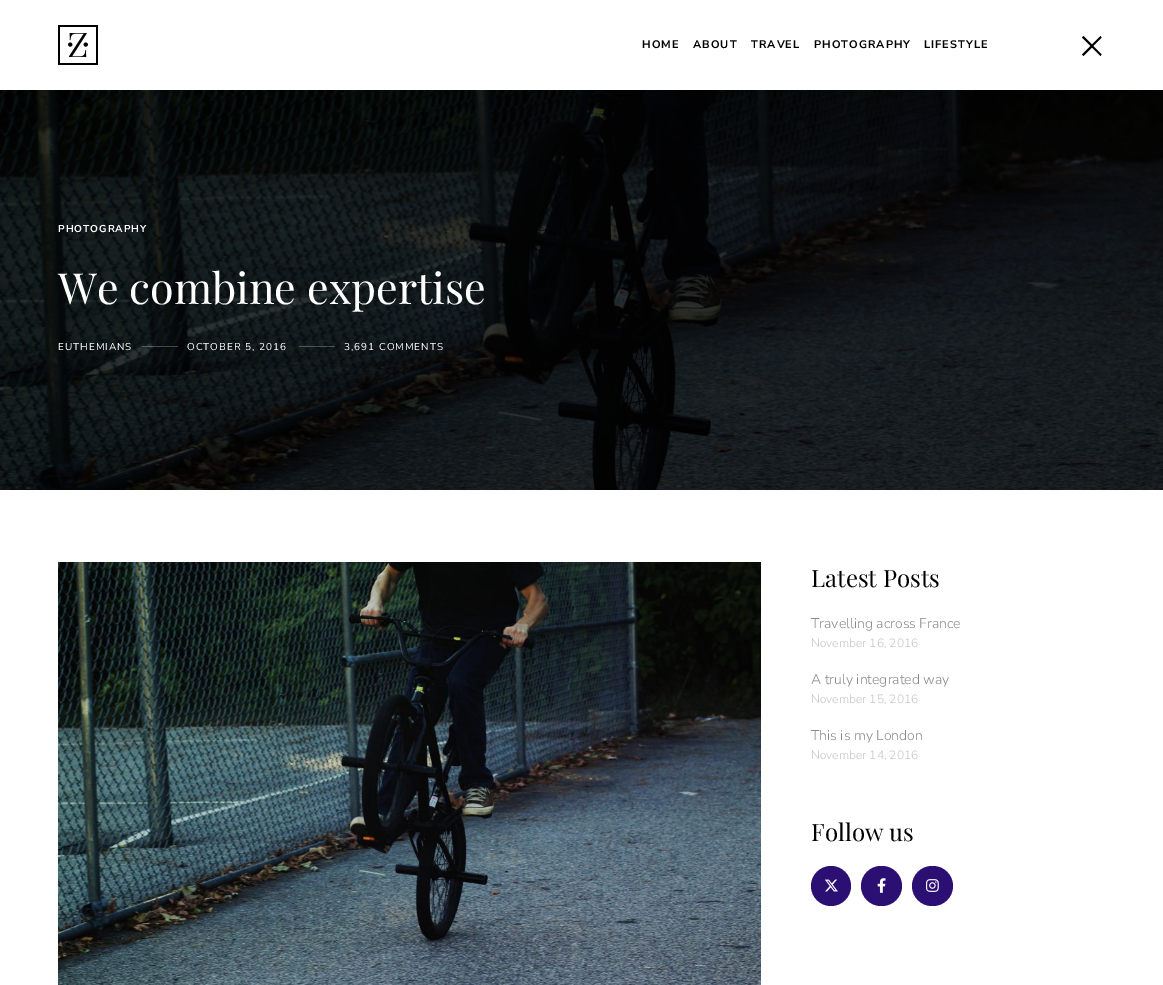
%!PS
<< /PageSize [1163 985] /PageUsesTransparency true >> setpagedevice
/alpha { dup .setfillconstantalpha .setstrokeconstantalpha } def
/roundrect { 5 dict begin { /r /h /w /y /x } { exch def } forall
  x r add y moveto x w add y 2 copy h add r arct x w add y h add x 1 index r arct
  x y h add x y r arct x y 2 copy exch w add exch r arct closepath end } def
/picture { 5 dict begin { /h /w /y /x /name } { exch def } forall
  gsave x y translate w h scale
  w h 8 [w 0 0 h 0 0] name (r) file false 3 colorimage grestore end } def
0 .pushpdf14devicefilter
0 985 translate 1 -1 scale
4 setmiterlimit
1 setgray
0 0 1163 985 rectfill
(img1.rgb) 58 25 40 40 picture
/NunitoSans-Bold [11 0 0 -11 0 0] selectfont
0 setgray
642 48 moveto 1 0 (HOME) ashow
693 48 moveto 1 0 (ABOUT) ashow
751 48 moveto 1 0 (TRAVEL) ashow
814 48 moveto 1 0 (PHOTOGRAPHY) ashow
924 48 moveto 1 0 (LIFESTYLE) ashow
newpath 1083.5 36 moveto 1101.5 54.5 lineto 1100.5 56 lineto 1082 37.5 lineto closepath fill
newpath 1082 54.5 moveto 1100.5 36 lineto 1101.5 37.5 lineto 1083.5 56 lineto closepath fill
(img2.rgb) 0 90 1163 400 picture
/NunitoSans-Bold [10 0 0 -10 0 0] selectfont
1 setgray
58 232 moveto 1 0 (PHOTOGRAPHY) ashow
/PlayfairDisplay-Regular [43 0 0 -43 0 0] selectfont
58 304 moveto (We combine expertise) show
/NunitoSans-Regular [10 0 0 -10 0 0] selectfont
58 350 moveto 1 0 (EUTHEMIANS) ashow
0.25 alpha
142 346 36 1 rectfill
1 alpha
187 350 moveto 1 0 (OCTOBER 5, 2016) ashow
0.25 alpha
299 346 36 1 rectfill
1 alpha
344 350 moveto 1 0 (3,691 COMMENTS) ashow
(img3.rgb) 58 562 703 423 picture
/PlayfairDisplay-Regular [24 0 0 -24 0 0] selectfont
0 setgray
811 587 moveto (Latest Posts) show
/NunitoSans-Light [14 0 0 -14 0 0] selectfont
0.533 setgray
811 628 moveto (Travelling across France) show
/NunitoSans-Light [12 0 0 -12 0 0] selectfont
0.769 setgray
811 647 moveto (November 16, 2016) show
/NunitoSans-Light [14 0 0 -14 0 0] selectfont
0.533 setgray
811 684 moveto (A truly integrated way) show
/NunitoSans-Light [12 0 0 -12 0 0] selectfont
0.769 setgray
811 703 moveto (November 15, 2016) show
/NunitoSans-Light [14 0 0 -14 0 0] selectfont
0.533 setgray
811 740 moveto (This is my London) show
/NunitoSans-Light [12 0 0 -12 0 0] selectfont
0.769 setgray
811 759 moveto (November 14, 2016) show
/PlayfairDisplay-Regular [24 0 0 -24 0 0] selectfont
0 setgray
811 841 moveto (Follow us) show
0.173 0.059 0.451 setrgbcolor
newpath 831 886 20 0 360 arc closepath fill
(img4.rgb) 824 879 14 13 picture
861 866 41 40 20 roundrect fill
(img5.rgb) 877 878 9 15 picture
912 866 41 40 20 roundrect fill
(img6.rgb) 926 879 13 13 picture
.poppdf14devicefilter showpage
